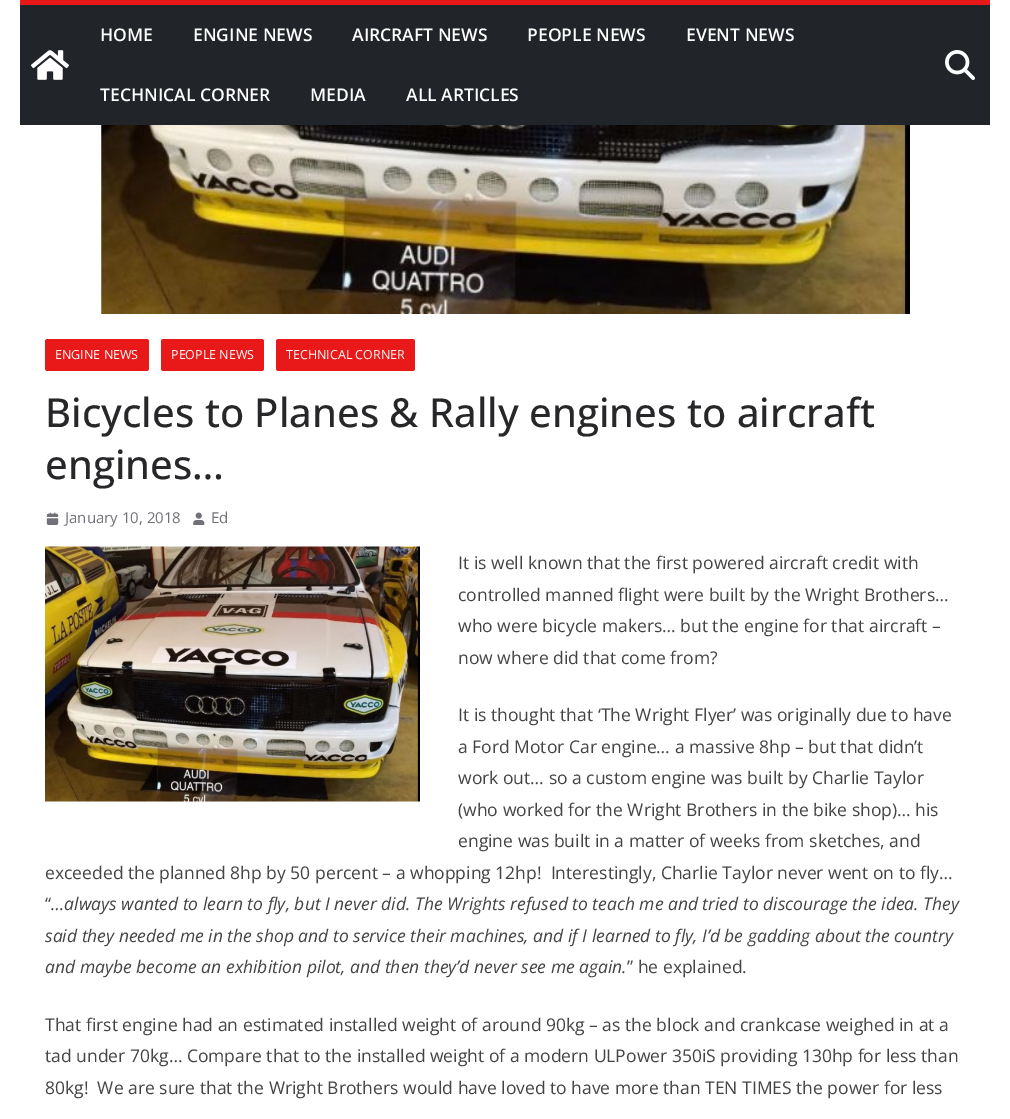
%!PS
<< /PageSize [1010 1119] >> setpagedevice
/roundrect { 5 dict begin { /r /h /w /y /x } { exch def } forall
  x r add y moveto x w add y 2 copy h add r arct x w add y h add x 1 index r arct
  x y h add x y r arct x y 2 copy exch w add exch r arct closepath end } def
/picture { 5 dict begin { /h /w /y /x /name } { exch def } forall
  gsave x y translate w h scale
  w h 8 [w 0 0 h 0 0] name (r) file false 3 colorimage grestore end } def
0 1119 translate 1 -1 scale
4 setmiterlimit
1 setgray
0 0 1010 1119 rectfill
0.129 0.145 0.161 setrgbcolor
20 5 970 120 rectfill
0.918 0.098 0.098 setrgbcolor
20 0 970 5 rectfill
(img1.rgb) 31 50 38 30 picture
/OpenSans-SemiBold [17.5 0 0 -17.5 0 0] selectfont
1 setgray
100 41 moveto (HOME) show
193 41 moveto (ENGINE NEWS) show
352 41 moveto (AIRCRAFT NEWS) show
527 41 moveto (PEOPLE NEWS) show
686 41 moveto (EVENT NEWS) show
100 101 moveto (TECHNICAL CORNER) show
310 101 moveto (MEDIA) show
406 101 moveto (ALL ARTICLES) show
(img2.rgb) 945 50 30 30 picture
(img3.rgb) 101 125 809 189 picture
0.918 0.098 0.098 setrgbcolor
45 339 104 32 2.5 roundrect fill
/OpenSans-Regular [12.5 0 0 -12.5 0 0] selectfont
1 setgray
55 359 moveto (ENGINE NEWS) show
0.918 0.098 0.098 setrgbcolor
161 339 103 32 2.5 roundrect fill
1 setgray
171 359 moveto (PEOPLE NEWS) show
0.918 0.098 0.098 setrgbcolor
276 339 139 32 2.5 roundrect fill
1 setgray
286 359 moveto (TECHNICAL CORNER) show
/OpenSans-Medium [40 0 0 -40 0 0] selectfont
0.153 0.153 0.165 setrgbcolor
45 427 moveto (Bicycles to Planes & Rally engines to aircraft) show
45 479 moveto (engines…) show
(img4.rgb) 46 512 13 13 picture
/OpenSans-Regular [15 0 0 -15 0 0] selectfont
0.443 0.443 0.478 setrgbcolor
65 523 moveto (January 10, 2018) show
(img5.rgb) 193 512 12 13 picture
211 523 moveto (Ed) show
(img6.rgb) 45 546 375 256 picture
/OpenSans-Regular [17.5 0 0 -17.5 0 0] selectfont
0.267 setgray
458 569 moveto (It is well known that the first powered aircraft credit with) show
458 601 moveto (controlled manned flight were built by the Wright Brothers…) show
458 632 moveto (who were bicycle makers… but the engine for that aircraft –) show
458 664 moveto (now where did that come from?) show
458 721 moveto (It is thought that ‘The Wright Flyer’ was originally due to have) show
458 753 moveto (a Ford Motor Car engine… a massive 8hp – but that didn’t) show
458 784 moveto (work out… so a custom engine was built by Charlie Taylor) show
458 816 moveto (\(who worked for the Wright Brothers in the bike shop\)… his) show
458 847 moveto (engine was built in a matter of weeks from sketches, and) show
45 879 moveto (exceeded the planned 8hp by 50 percent – a whopping 12hp!  Interestingly, Charlie Taylor never went on to fly…) show
45 910 moveto (“) show
/OpenSans-Italic [17.5 0 0 -17.5 0 0] selectfont
51 910 moveto (…always wanted to learn to fly, but I never did. The Wrights refused to teach me and tried to discourage the idea. They) show
45 942 moveto (said they needed me in the shop and to service their machines, and if I learned to fly, I’d be gadding about the country) show
45 973 moveto (and maybe become an exhibition pilot, and then they’d never see me again.) show
/OpenSans-Regular [17.5 0 0 -17.5 0 0] selectfont
627 973 moveto (” he explained.) show
45 1031 moveto (That first engine had an estimated installed weight of around 90kg – as the block and crankcase weighed in at a) show
45 1062 moveto (tad under 70kg… Compare that to the installed weight of a modern ULPower 350iS providing 130hp for less than) show
45 1094 moveto (80kg!  We are sure that the Wright Brothers would have loved to have more than TEN TIMES the power for less) show
showpage
